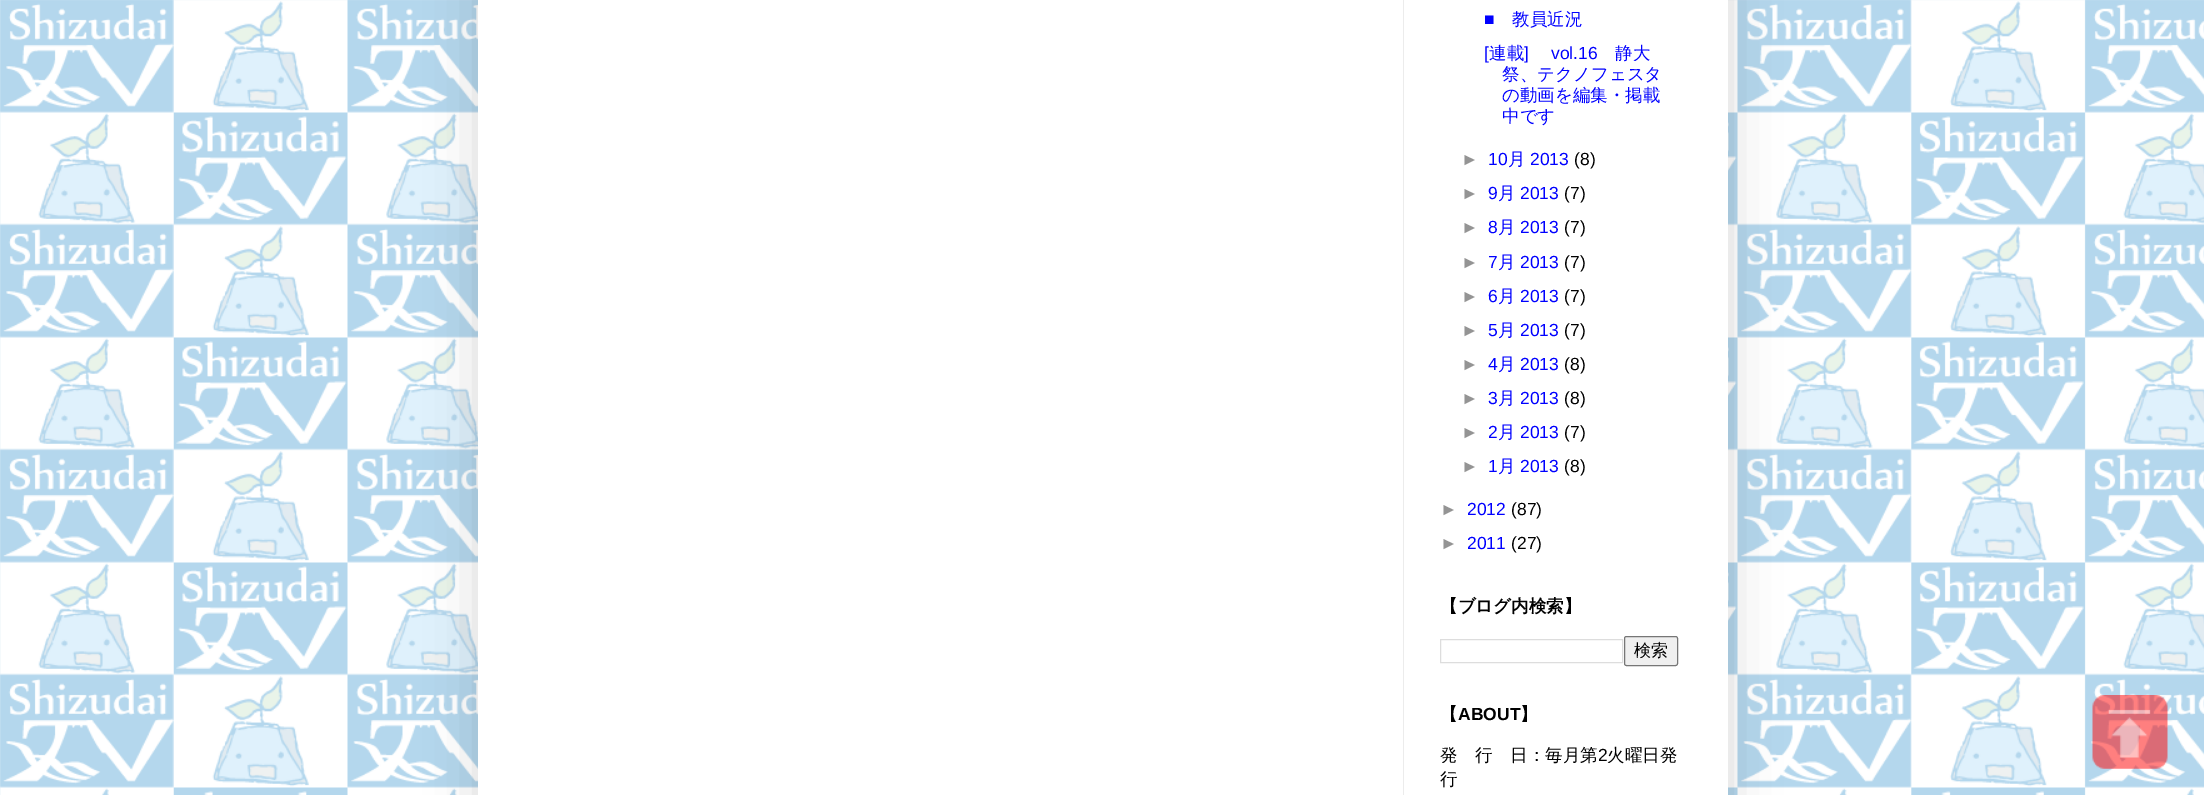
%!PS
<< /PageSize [2204 795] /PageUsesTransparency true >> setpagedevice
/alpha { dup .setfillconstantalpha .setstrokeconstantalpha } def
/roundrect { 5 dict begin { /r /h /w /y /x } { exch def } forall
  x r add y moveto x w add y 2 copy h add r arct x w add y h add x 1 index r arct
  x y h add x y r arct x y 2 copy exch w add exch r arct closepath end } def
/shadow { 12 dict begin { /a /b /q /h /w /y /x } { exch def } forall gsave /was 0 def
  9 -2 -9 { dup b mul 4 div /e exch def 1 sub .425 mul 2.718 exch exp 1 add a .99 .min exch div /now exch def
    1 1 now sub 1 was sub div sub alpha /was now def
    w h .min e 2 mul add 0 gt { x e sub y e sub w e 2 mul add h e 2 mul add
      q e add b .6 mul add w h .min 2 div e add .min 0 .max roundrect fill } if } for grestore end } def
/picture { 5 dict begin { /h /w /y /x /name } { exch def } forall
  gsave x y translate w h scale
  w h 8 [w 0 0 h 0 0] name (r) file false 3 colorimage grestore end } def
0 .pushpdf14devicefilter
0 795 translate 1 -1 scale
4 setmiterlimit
1 setgray
0 0 2204 795 rectfill
(img1.rgb) 0 0 2204 795 picture
0 setgray
478 -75 1250 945 0 25 0.15 shadow
1 setgray
478 0 1250 795 rectfill
0.925 setgray
1403 0 1 795 rectfill
/LiberationSans-Regular [17.5 0 0 -17.5 0 0] selectfont
0 0 1 setrgbcolor
1484 25 moveto (■) show
/WenQuanYiZenHei-Medium [17.5 0 0 -17.5 0 0] selectfont
1512 25 moveto (教員近況) show
/LiberationSans-Regular [17.5 0 0 -17.5 0 0] selectfont
1484 59 moveto ([) show
/WenQuanYiZenHei-Medium [17.5 0 0 -17.5 0 0] selectfont
1489 59 moveto (連載) show
/LiberationSans-Regular [17.5 0 0 -17.5 0 0] selectfont
1524 59 moveto (]) show
1551 59 moveto (vol.16) show
/WenQuanYiZenHei-Medium [17.5 0 0 -17.5 0 0] selectfont
1615 59 moveto (静大) show
1502 80 moveto (祭、テクノフェスタ) show
1502 101 moveto (の動画を編集・掲載) show
1502 122 moveto (中です) show
/LiberationSans-Regular [17.5 0 0 -17.5 0 0] selectfont
0.58 setgray
1461 165 moveto (►) show
0 0 1 setrgbcolor
1488 165 moveto (10) show
/WenQuanYiZenHei-Medium [17.5 0 0 -17.5 0 0] selectfont
1508 165 moveto (月) show
/LiberationSans-Regular [17.5 0 0 -17.5 0 0] selectfont
1530 165 moveto (2013) show
0 setgray
1574 165 moveto (\(8\)) show
0.58 setgray
1461 199 moveto (►) show
0 0 1 setrgbcolor
1488 199 moveto (9) show
/WenQuanYiZenHei-Medium [17.5 0 0 -17.5 0 0] selectfont
1498 199 moveto (月) show
/LiberationSans-Regular [17.5 0 0 -17.5 0 0] selectfont
1520 199 moveto (2013) show
0 setgray
1564 199 moveto (\(7\)) show
0.58 setgray
1461 233 moveto (►) show
0 0 1 setrgbcolor
1488 233 moveto (8) show
/WenQuanYiZenHei-Medium [17.5 0 0 -17.5 0 0] selectfont
1498 233 moveto (月) show
/LiberationSans-Regular [17.5 0 0 -17.5 0 0] selectfont
1520 233 moveto (2013) show
0 setgray
1564 233 moveto (\(7\)) show
0.58 setgray
1461 268 moveto (►) show
0 0 1 setrgbcolor
1488 268 moveto (7) show
/WenQuanYiZenHei-Medium [17.5 0 0 -17.5 0 0] selectfont
1498 268 moveto (月) show
/LiberationSans-Regular [17.5 0 0 -17.5 0 0] selectfont
1520 268 moveto (2013) show
0 setgray
1564 268 moveto (\(7\)) show
0.58 setgray
1461 302 moveto (►) show
0 0 1 setrgbcolor
1488 302 moveto (6) show
/WenQuanYiZenHei-Medium [17.5 0 0 -17.5 0 0] selectfont
1498 302 moveto (月) show
/LiberationSans-Regular [17.5 0 0 -17.5 0 0] selectfont
1520 302 moveto (2013) show
0 setgray
1564 302 moveto (\(7\)) show
0.58 setgray
1461 336 moveto (►) show
0 0 1 setrgbcolor
1488 336 moveto (5) show
/WenQuanYiZenHei-Medium [17.5 0 0 -17.5 0 0] selectfont
1498 336 moveto (月) show
/LiberationSans-Regular [17.5 0 0 -17.5 0 0] selectfont
1520 336 moveto (2013) show
0 setgray
1564 336 moveto (\(7\)) show
0.58 setgray
1461 370 moveto (►) show
0 0 1 setrgbcolor
1488 370 moveto (4) show
/WenQuanYiZenHei-Medium [17.5 0 0 -17.5 0 0] selectfont
1498 370 moveto (月) show
/LiberationSans-Regular [17.5 0 0 -17.5 0 0] selectfont
1520 370 moveto (2013) show
0 setgray
1564 370 moveto (\(8\)) show
0.58 setgray
1461 404 moveto (►) show
0 0 1 setrgbcolor
1488 404 moveto (3) show
/WenQuanYiZenHei-Medium [17.5 0 0 -17.5 0 0] selectfont
1498 404 moveto (月) show
/LiberationSans-Regular [17.5 0 0 -17.5 0 0] selectfont
1520 404 moveto (2013) show
0 setgray
1564 404 moveto (\(8\)) show
0.58 setgray
1461 438 moveto (►) show
0 0 1 setrgbcolor
1488 438 moveto (2) show
/WenQuanYiZenHei-Medium [17.5 0 0 -17.5 0 0] selectfont
1498 438 moveto (月) show
/LiberationSans-Regular [17.5 0 0 -17.5 0 0] selectfont
1520 438 moveto (2013) show
0 setgray
1564 438 moveto (\(7\)) show
0.58 setgray
1461 472 moveto (►) show
0 0 1 setrgbcolor
1488 472 moveto (1) show
/WenQuanYiZenHei-Medium [17.5 0 0 -17.5 0 0] selectfont
1498 472 moveto (月) show
/LiberationSans-Regular [17.5 0 0 -17.5 0 0] selectfont
1520 472 moveto (2013) show
0 setgray
1564 472 moveto (\(8\)) show
0.58 setgray
1440 515 moveto (►) show
0 0 1 setrgbcolor
1467 515 moveto (2012) show
0 setgray
1511 515 moveto (\(87\)) show
0.58 setgray
1440 549 moveto (►) show
0 0 1 setrgbcolor
1467 549 moveto (2011) show
0 setgray
1511 549 moveto (\(27\)) show
/WenQuanYiZenHei-Bold [17.5 0 0 -17.5 0 0] selectfont
1440 612 moveto (【ブログ内検索】) show
0.867 setgray
1440.5 639.5 182 23 rectstroke
0.937 setgray
1624.5 636.5 53 29 2 roundrect gsave fill grestore
0.463 setgray
stroke
/WenQuanYiZenHei-Medium [17 0 0 -17 0 0] selectfont
0 setgray
1634 656 moveto (検索) show
/WenQuanYiZenHei-Bold [17.5 0 0 -17.5 0 0] selectfont
1440 720 moveto (【) show
/LiberationSans-Bold [17.5 0 0 -17.5 0 0] selectfont
1458 720 moveto (ABOUT) show
/WenQuanYiZenHei-Bold [17.5 0 0 -17.5 0 0] selectfont
1520 720 moveto (】) show
/WenQuanYiZenHei-Medium [17.5 0 0 -17.5 0 0] selectfont
1440 761 moveto (発　行　日：毎月第) show
/LiberationSans-Regular [17.5 0 0 -17.5 0 0] selectfont
1598 761 moveto (2) show
/WenQuanYiZenHei-Medium [17.5 0 0 -17.5 0 0] selectfont
1607 761 moveto (火曜日発) show
1440 785 moveto (行) show
(img2.rgb) 2092 695 76 74 picture
.poppdf14devicefilter showpage
